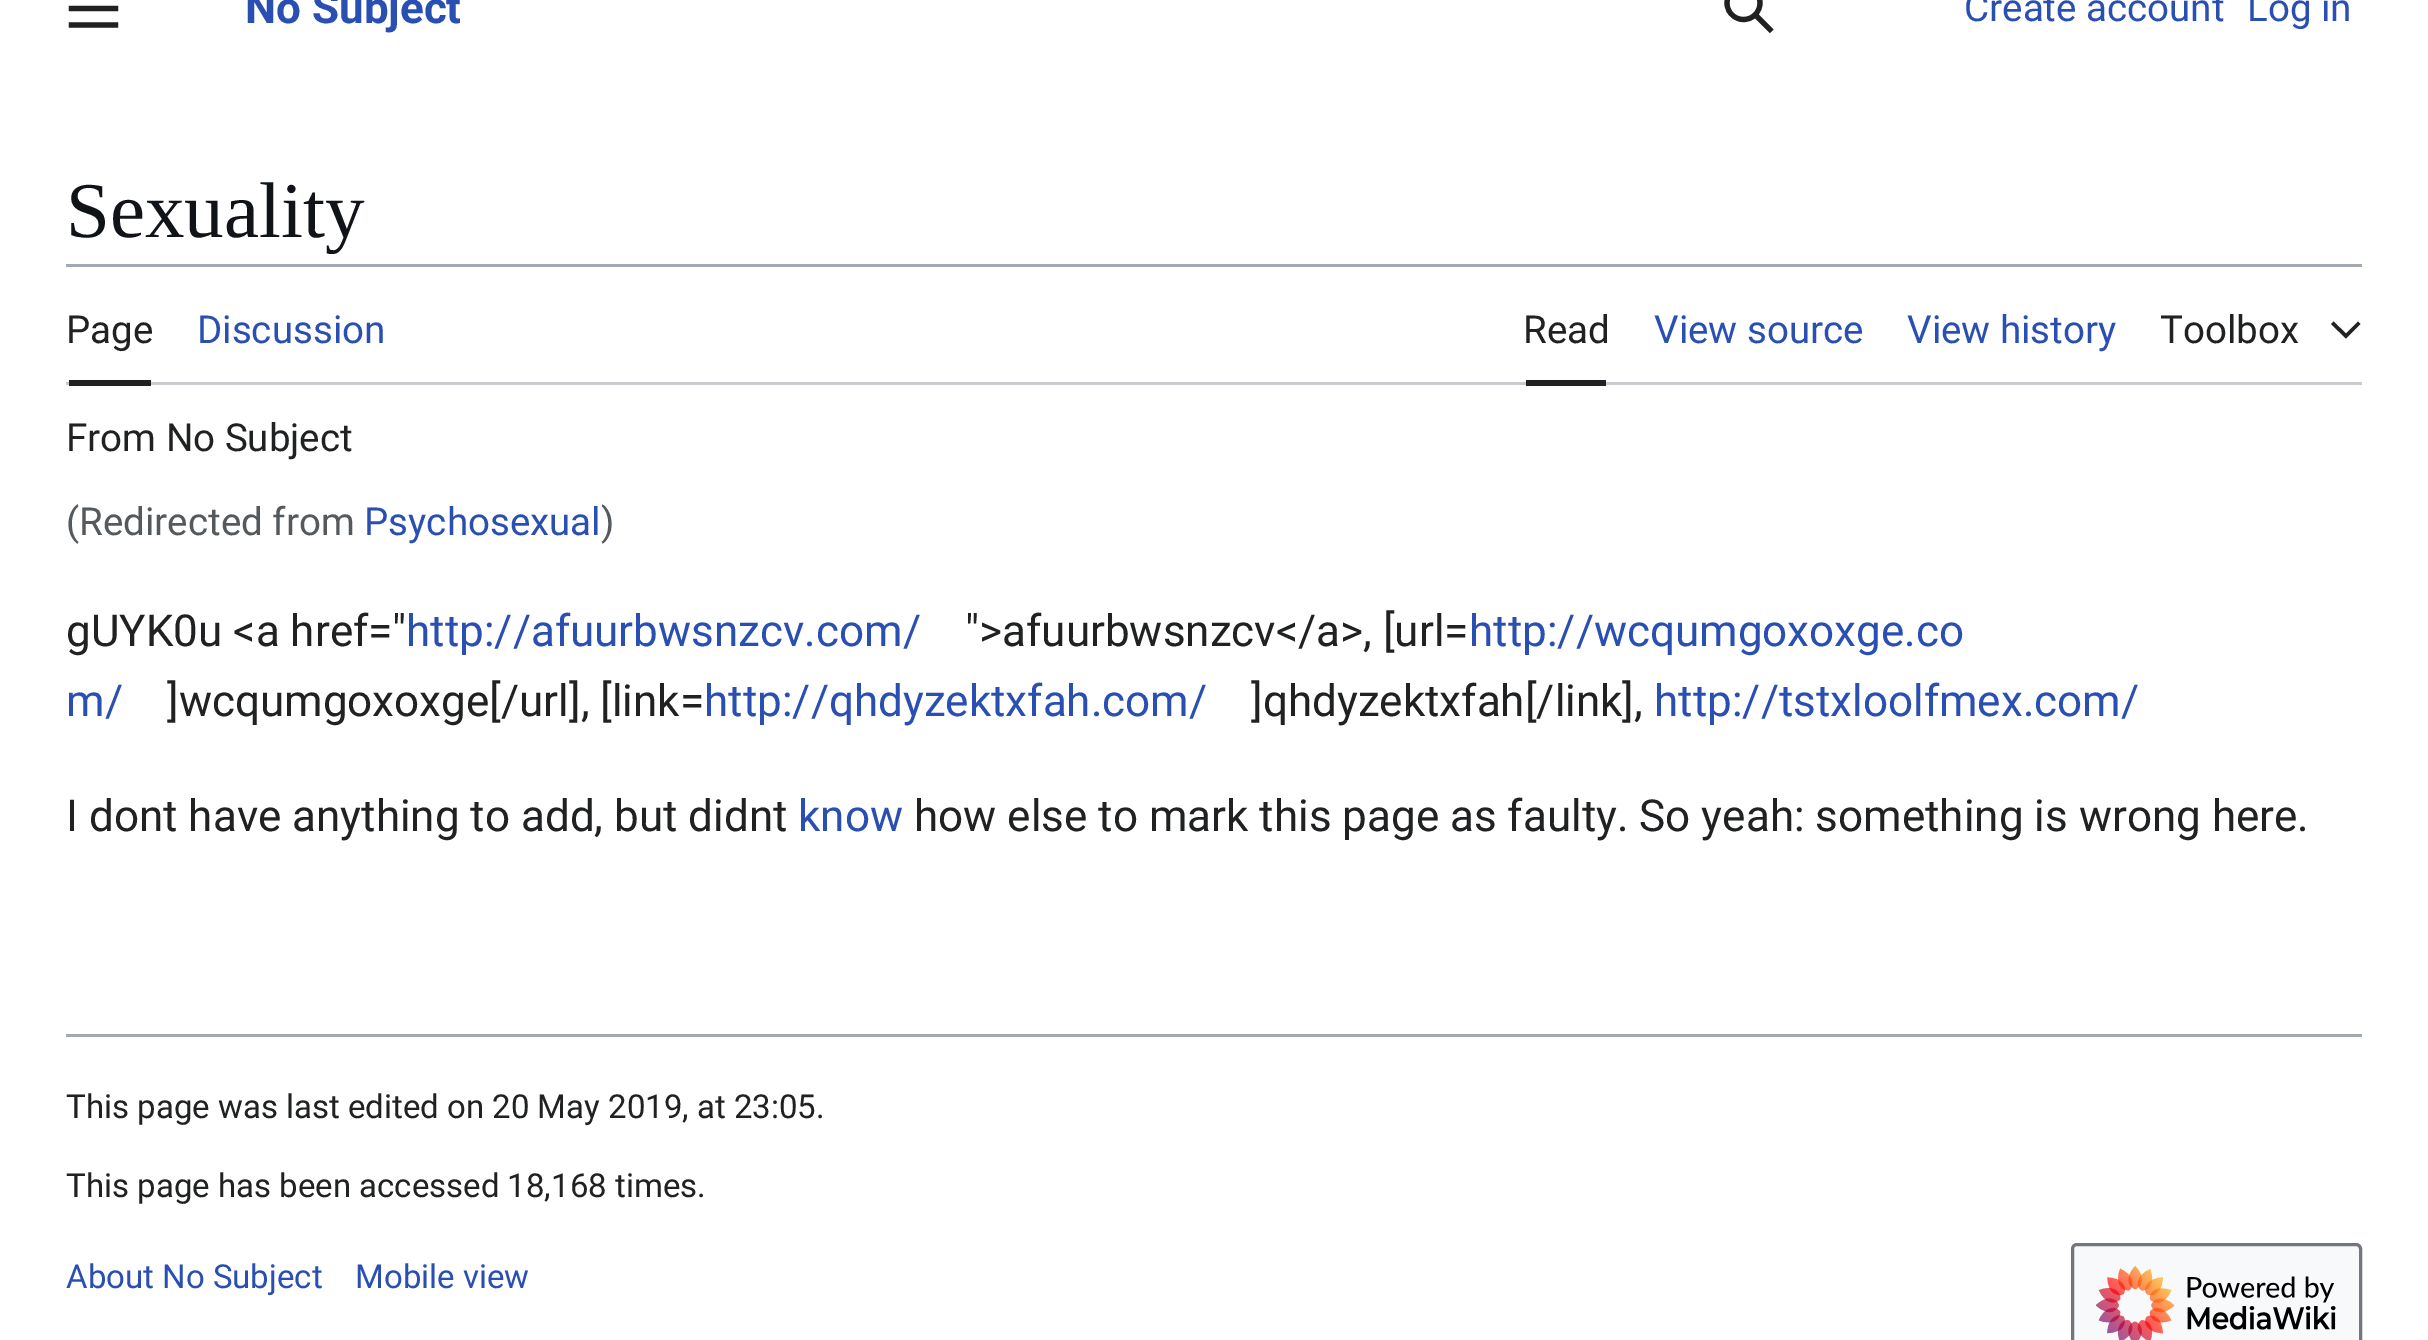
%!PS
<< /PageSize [2428 1340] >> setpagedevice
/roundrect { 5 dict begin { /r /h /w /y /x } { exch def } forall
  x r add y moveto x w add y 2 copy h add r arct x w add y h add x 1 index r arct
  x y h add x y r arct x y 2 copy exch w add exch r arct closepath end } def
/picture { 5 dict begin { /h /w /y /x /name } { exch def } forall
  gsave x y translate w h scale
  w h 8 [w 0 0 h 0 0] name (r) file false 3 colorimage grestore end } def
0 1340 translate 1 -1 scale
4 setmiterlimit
1 setgray
0 0 2428 1340 rectfill
(img1.rgb) 68 5 51 23 picture
/Roboto-Bold [44 0 0 -44 0 0] selectfont
0.165 0.31 0.702 setrgbcolor
245 23 moveto (No Subject) show
(img2.rgb) 1724 0 50 34 picture
/Roboto-Regular [38.5 0 0 -38.5 0 0] selectfont
1964 21 moveto (Create account) show
2247 21 moveto (Log in) show
/LiberationSerif-Regular [79 0 0 -79 0 0] selectfont
0.063 0.078 0.094 setrgbcolor
66 237 moveto (Sexuality) show
0.635 0.663 0.694 setrgbcolor
66 264 2296 3 rectfill
0.784 0.8 0.82 setrgbcolor
66 382 2296 3 rectfill
0.125 0.129 0.133 setrgbcolor
69 380 82 6 rectfill
/Roboto-Regular [38.5 0 0 -38.5 0 0] selectfont
66 343 moveto (Page) show
0.165 0.31 0.702 setrgbcolor
197 343 moveto (Discussion) show
0.125 0.129 0.133 setrgbcolor
1526 380 80 6 rectfill
1523 343 moveto (Read) show
0.165 0.31 0.702 setrgbcolor
1654 343 moveto (View source) show
1907 343 moveto (View history) show
0.125 0.129 0.133 setrgbcolor
2160 343 moveto (Toolbox) show
newpath 2358 321.5 moveto 2346 333.5 lineto 2333.5 321.5 lineto 2331 324 lineto 2346 338.5 lineto 2360.5 324 lineto closepath fill
66 451 moveto (From No Subject) show
0.329 0.349 0.365 setrgbcolor
66 535 moveto (\(Redirected from) show
0.165 0.31 0.702 setrgbcolor
364 535 moveto (Psychosexual) show
0.329 0.349 0.365 setrgbcolor
601 535 moveto (\)) show
/Roboto-Regular [44 0 0 -44 0 0] selectfont
0.125 0.129 0.133 setrgbcolor
66 646 moveto (gUYK0u <a href=") show
0.165 0.31 0.702 setrgbcolor
406 646 moveto (http://afuurbwsnzcv.com/) show
0.125 0.129 0.133 setrgbcolor
965 646 moveto (">afuurbwsnzcv</a>, [url=) show
0.165 0.31 0.702 setrgbcolor
1469 646 moveto (http://wcqumgoxoxge.co) show
66 716 moveto (m/) show
0.125 0.129 0.133 setrgbcolor
167 716 moveto (]wcqumgoxoxge[/url], [link=) show
0.165 0.31 0.702 setrgbcolor
704 716 moveto (http://qhdyzektxfah.com/) show
0.125 0.129 0.133 setrgbcolor
1251 716 moveto (]qhdyzektxfah[/link],) show
0.165 0.31 0.702 setrgbcolor
1654 716 moveto (http://tstxloolfmex.com/) show
0.125 0.129 0.133 setrgbcolor
66 831 moveto (I dont have anything to add, but didnt) show
0.165 0.31 0.702 setrgbcolor
798 831 moveto (know) show
0.125 0.129 0.133 setrgbcolor
914 831 moveto (how else to mark this page as faulty. So yeah: something is wrong here.) show
0.635 0.663 0.694 setrgbcolor
66 1034 2296 3 rectfill
/Roboto-Regular [33 0 0 -33 0 0] selectfont
0.125 0.129 0.133 setrgbcolor
66 1118 moveto (This page was last edited on 20 May 2019, at 23:05.) show
66 1197 moveto (This page has been accessed 18,168 times.) show
0.165 0.31 0.702 setrgbcolor
66 1288 moveto (About No Subject) show
355 1288 moveto (Mobile view) show
0.973 0.976 0.98 setrgbcolor
2072.5 1244.5 288 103 4.5 roundrect gsave fill grestore
0.447 0.467 0.49 setrgbcolor
3 setlinewidth
stroke
(img3.rgb) 2096 1265 240 75 picture
showpage
